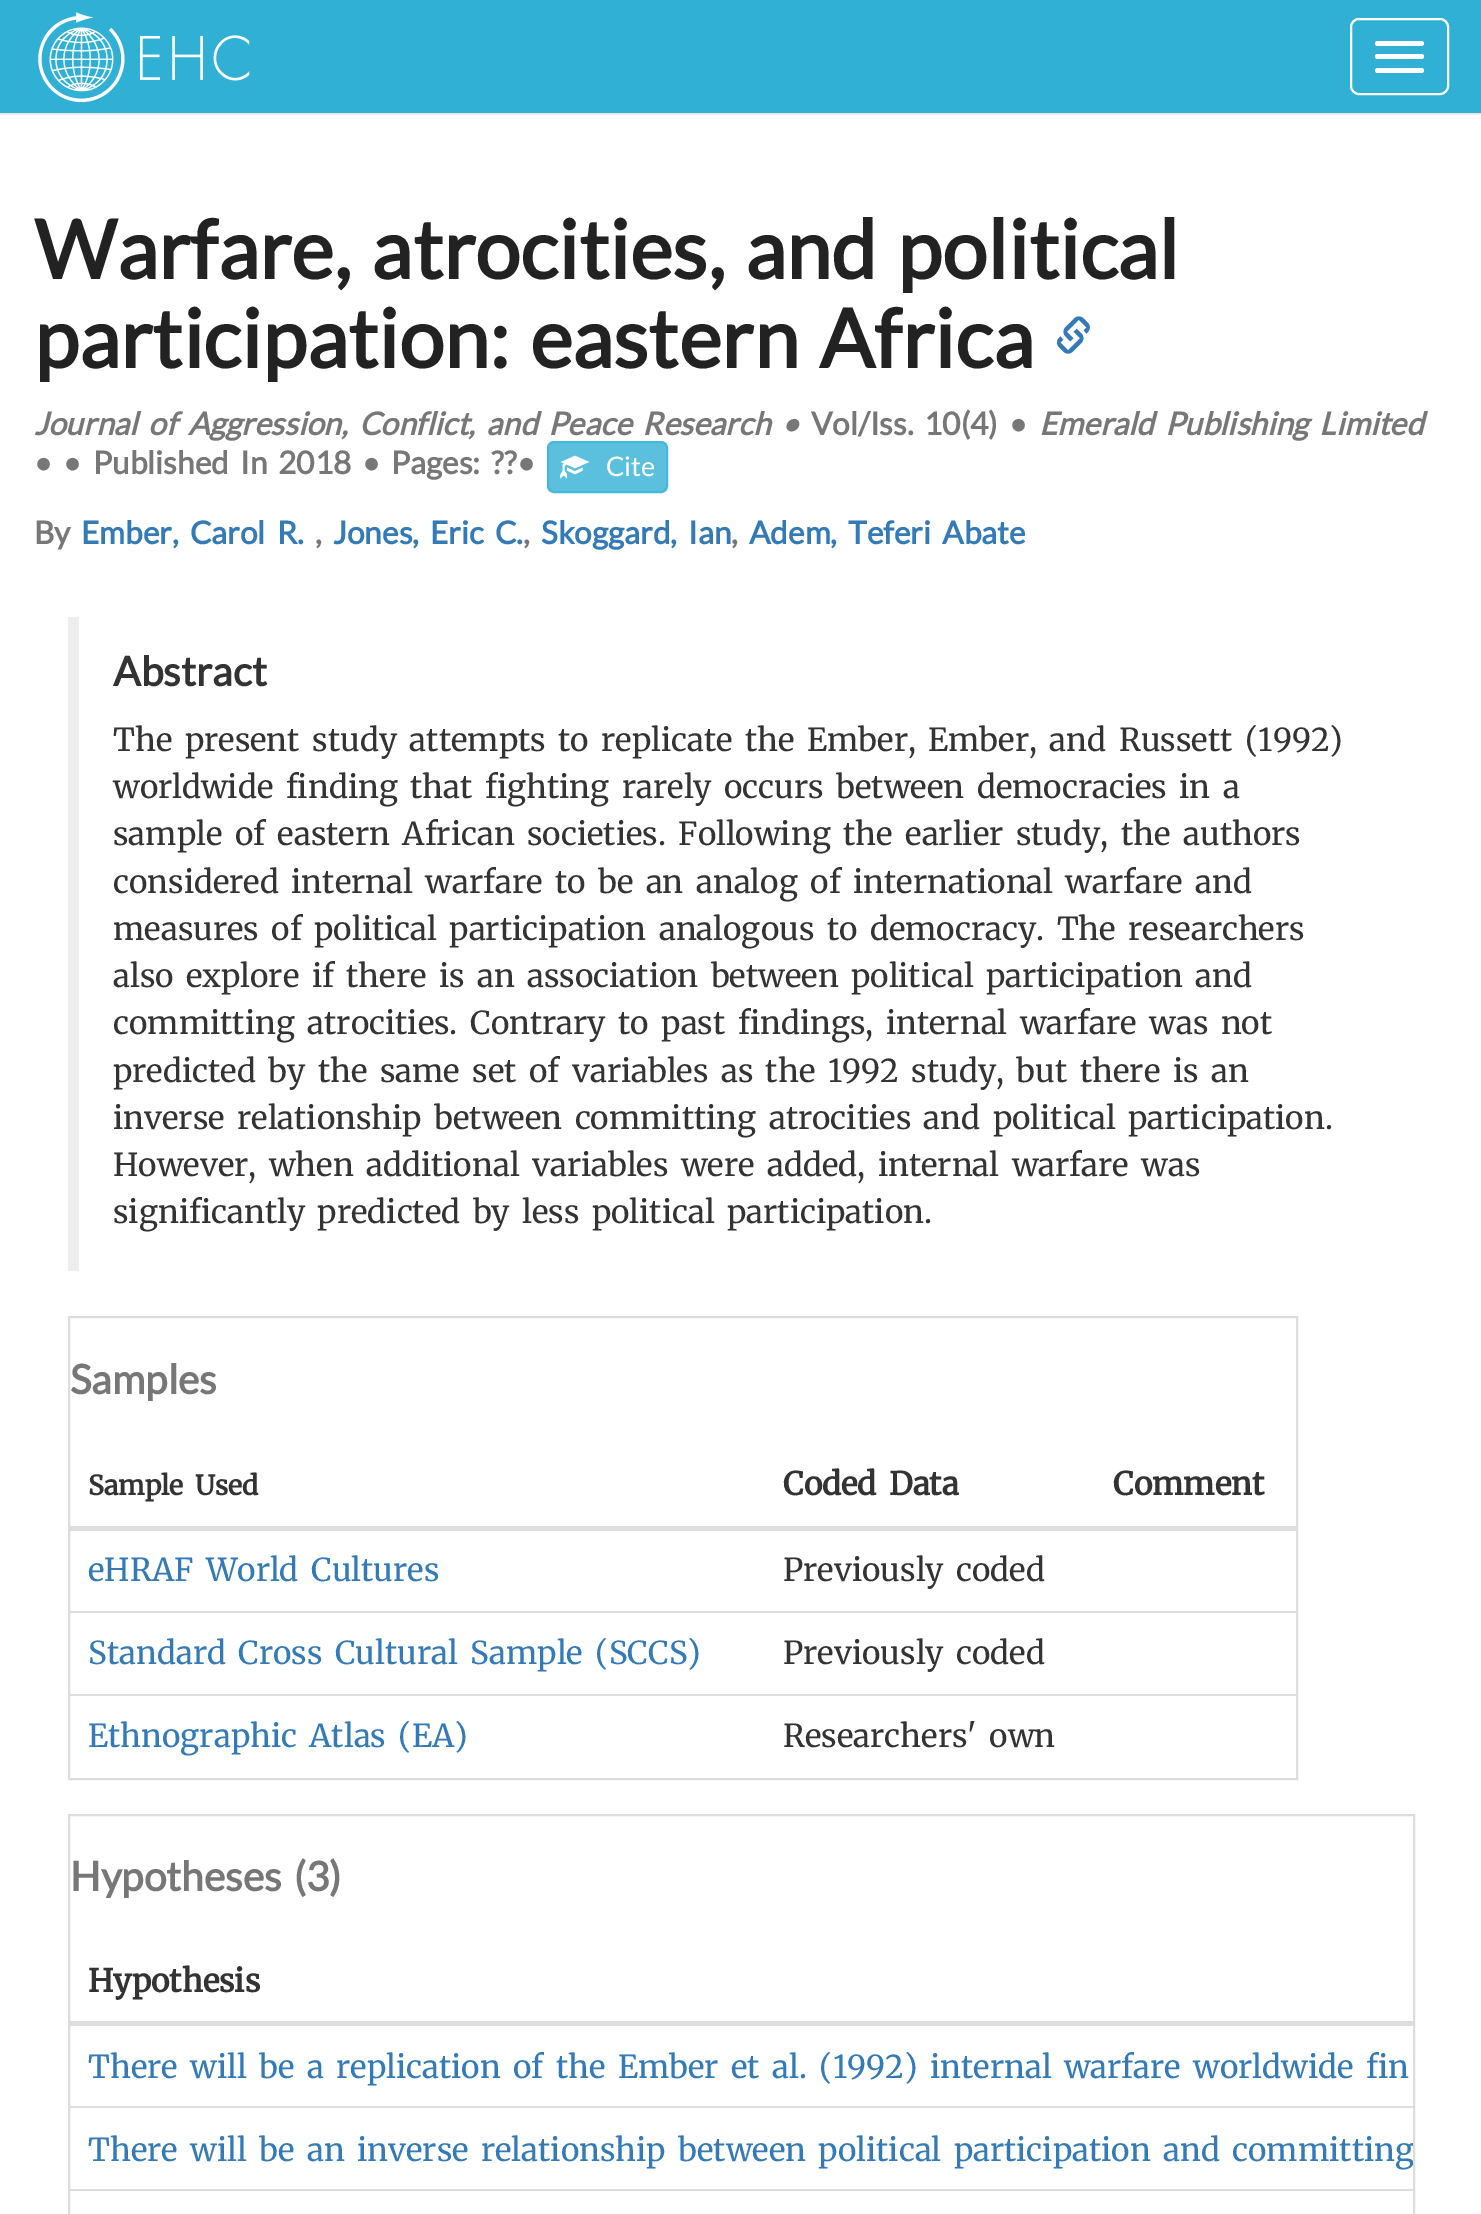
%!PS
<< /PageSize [1481 2214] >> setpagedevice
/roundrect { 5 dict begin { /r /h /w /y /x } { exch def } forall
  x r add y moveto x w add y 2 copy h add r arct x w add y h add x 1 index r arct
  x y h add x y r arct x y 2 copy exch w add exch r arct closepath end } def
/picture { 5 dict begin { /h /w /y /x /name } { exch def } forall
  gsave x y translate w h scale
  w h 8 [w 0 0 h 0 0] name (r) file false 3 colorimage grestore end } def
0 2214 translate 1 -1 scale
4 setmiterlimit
1 setgray
0 0 1481 2214 rectfill
0.192 0.69 0.835 setrgbcolor
0 0 1481 113 rectfill
0.906 setgray
0 113 1481 2 rectfill
(img1.rgb) 38 12 212 91 picture
1 setgray
2 setlinewidth
1351 19 97 75 8 roundrect stroke
1375 41 49 5 2.5 roundrect fill
1375 54 49 5 2.5 roundrect fill
1375 68 49 5 2.5 roundrect fill
/Lato-Bold [81 0 0 -81 0 0] selectfont
0.133 setgray
34 279 moveto 5 0 32 (Warfare, atrocities, and political) widthshow
34 368 moveto 5 0 32 (participation: eastern Africa) widthshow
(img2.rgb) 1057 316 33 38 picture
/Lato-BoldItalic [31.5 0 0 -31.5 0 0] selectfont
0.467 setgray
34 435 moveto 5 0 32 (Journal of Aggression, Conflict, and Peace Research) widthshow
781 435 moveto (•) show
/Lato-Bold [31.5 0 0 -31.5 0 0] selectfont
811 435 moveto (Vol/Iss.) show
924 435 moveto (10\(4\)) show
1009 435 moveto (•) show
/Lato-BoldItalic [31.5 0 0 -31.5 0 0] selectfont
1039 435 moveto 5 0 32 (Emerald Publishing Limited) widthshow
/Lato-Bold [31.5 0 0 -31.5 0 0] selectfont
34 474 moveto (•) show
63 474 moveto (•) show
93 474 moveto 5 0 32 (Published In) widthshow
278 474 moveto (2018) show
362 474 moveto (•) show
391 474 moveto 5 0 32 (Pages: ??) widthshow
517 474 moveto (•) show
0.357 0.753 0.871 setrgbcolor
548 442 119 50 6 roundrect gsave fill grestore
0.275 0.722 0.855 setrgbcolor
stroke
(img3.rgb) 560 455 30 24 picture
/Lato-Regular [27 0 0 -27 0 0] selectfont
1 setgray
606 476 moveto (Cite) show
/Lato-Bold [31.5 0 0 -31.5 0 0] selectfont
0.467 setgray
34 544 moveto (By) show
0.2 0.478 0.718 setrgbcolor
81 544 moveto 5 0 32 (Ember, Carol R.) widthshow
0.467 setgray
315 544 moveto (,) show
0.2 0.478 0.718 setrgbcolor
333 544 moveto 5 0 32 (Jones, Eric C.) widthshow
0.467 setgray
523 544 moveto (,) show
0.2 0.478 0.718 setrgbcolor
541 544 moveto 5 0 32 (Skoggard, Ian) widthshow
0.467 setgray
731 544 moveto (,) show
0.2 0.478 0.718 setrgbcolor
749 544 moveto 5 0 32 (Adem, Teferi Abate) widthshow
0.933 setgray
68 617 11 654 rectfill
/Lato-Bold [40.5 0 0 -40.5 0 0] selectfont
0.2 setgray
113 686 moveto (Abstract) show
/Merriweather-Light [31.5 0 0 -31.5 0 0] selectfont
113 751 moveto 5 0 32 (The present study attempts to replicate the Ember, Ember, and Russett \(1992\)) widthshow
113 798 moveto 5 0 32 (worldwide finding that fighting rarely occurs between democracies in a) widthshow
113 845 moveto 5 0 32 (sample of eastern African societies. Following the earlier study, the authors) widthshow
113 893 moveto 5 0 32 (considered internal warfare to be an analog of international warfare and) widthshow
113 940 moveto 5 0 32 (measures of political participation analogous to democracy. The researchers) widthshow
113 987 moveto 5 0 32 (also explore if there is an association between political participation and) widthshow
113 1034 moveto 5 0 32 (committing atrocities. Contrary to past findings, internal warfare was not) widthshow
113 1082 moveto 5 0 32 (predicted by the same set of variables as the 1992 study, but there is an) widthshow
113 1129 moveto 5 0 32 (inverse relationship between committing atrocities and political participation.) widthshow
113 1176 moveto 5 0 32 (However, when additional variables were added, internal warfare was) widthshow
113 1223 moveto 5 0 32 (significantly predicted by less political participation.) widthshow
0.867 setgray
69 1317 1228 462 rectstroke
/Lato-Bold [40.5 0 0 -40.5 0 0] selectfont
0.467 setgray
70 1394 moveto (Samples) show
/Merriweather-Bold [26.75 0 0 -26.75 0 0] selectfont
0.2 setgray
88 1495 moveto 5 0 32 (Sample Used) widthshow
/Merriweather-Bold [31.5 0 0 -31.5 0 0] selectfont
783 1495 moveto 5 0 32 (Coded Data) widthshow
0.867 setgray
70 1526 1226 5 rectfill
0.2 setgray
1113 1495 moveto (Comment) show
/Merriweather-Light [31.5 0 0 -31.5 0 0] selectfont
0.2 0.478 0.718 setrgbcolor
88 1581 moveto 5 0 32 (eHRAF World Cultures) widthshow
0.2 setgray
783 1581 moveto 5 0 32 (Previously coded) widthshow
0.867 setgray
70 1611 1226 2 rectfill
0.2 0.478 0.718 setrgbcolor
88 1664 moveto 5 0 32 (Standard Cross Cultural Sample \(SCCS\)) widthshow
0.2 setgray
783 1664 moveto 5 0 32 (Previously coded) widthshow
0.867 setgray
70 1694 1226 2 rectfill
0.2 0.478 0.718 setrgbcolor
88 1747 moveto 5 0 32 (Ethnographic Atlas \(EA\)) widthshow
0.2 setgray
783 1747 moveto 5 0 32 (Researchers' own) widthshow
0.867 setgray
69 1815 1345 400 rectstroke
/Lato-Bold [40.5 0 0 -40.5 0 0] selectfont
0.467 setgray
70 1891 moveto 5 0 32 (Hypotheses \() widthshow
306 1891 moveto (3\)) show
0.867 setgray
70 2021 1343 5 rectfill
/Merriweather-Bold [31.5 0 0 -31.5 0 0] selectfont
0.2 setgray
88 1992 moveto (Hypothesis) show
/Merriweather-Light [31.5 0 0 -31.5 0 0] selectfont
0.2 0.478 0.718 setrgbcolor
88 2078 moveto 5 0 32 (There will be a replication of the Ember et al. \(1992\) internal warfare worldwide fin) widthshow
0.867 setgray
70 2106 1343 2 rectfill
gsave
70 1816 1343 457 rectclip
0.2 0.478 0.718 setrgbcolor
88 2161 moveto 5 0 32 (There will be an inverse relationship between political participation and committing) widthshow
grestore
70 2189 1343 2 rectfill
showpage
